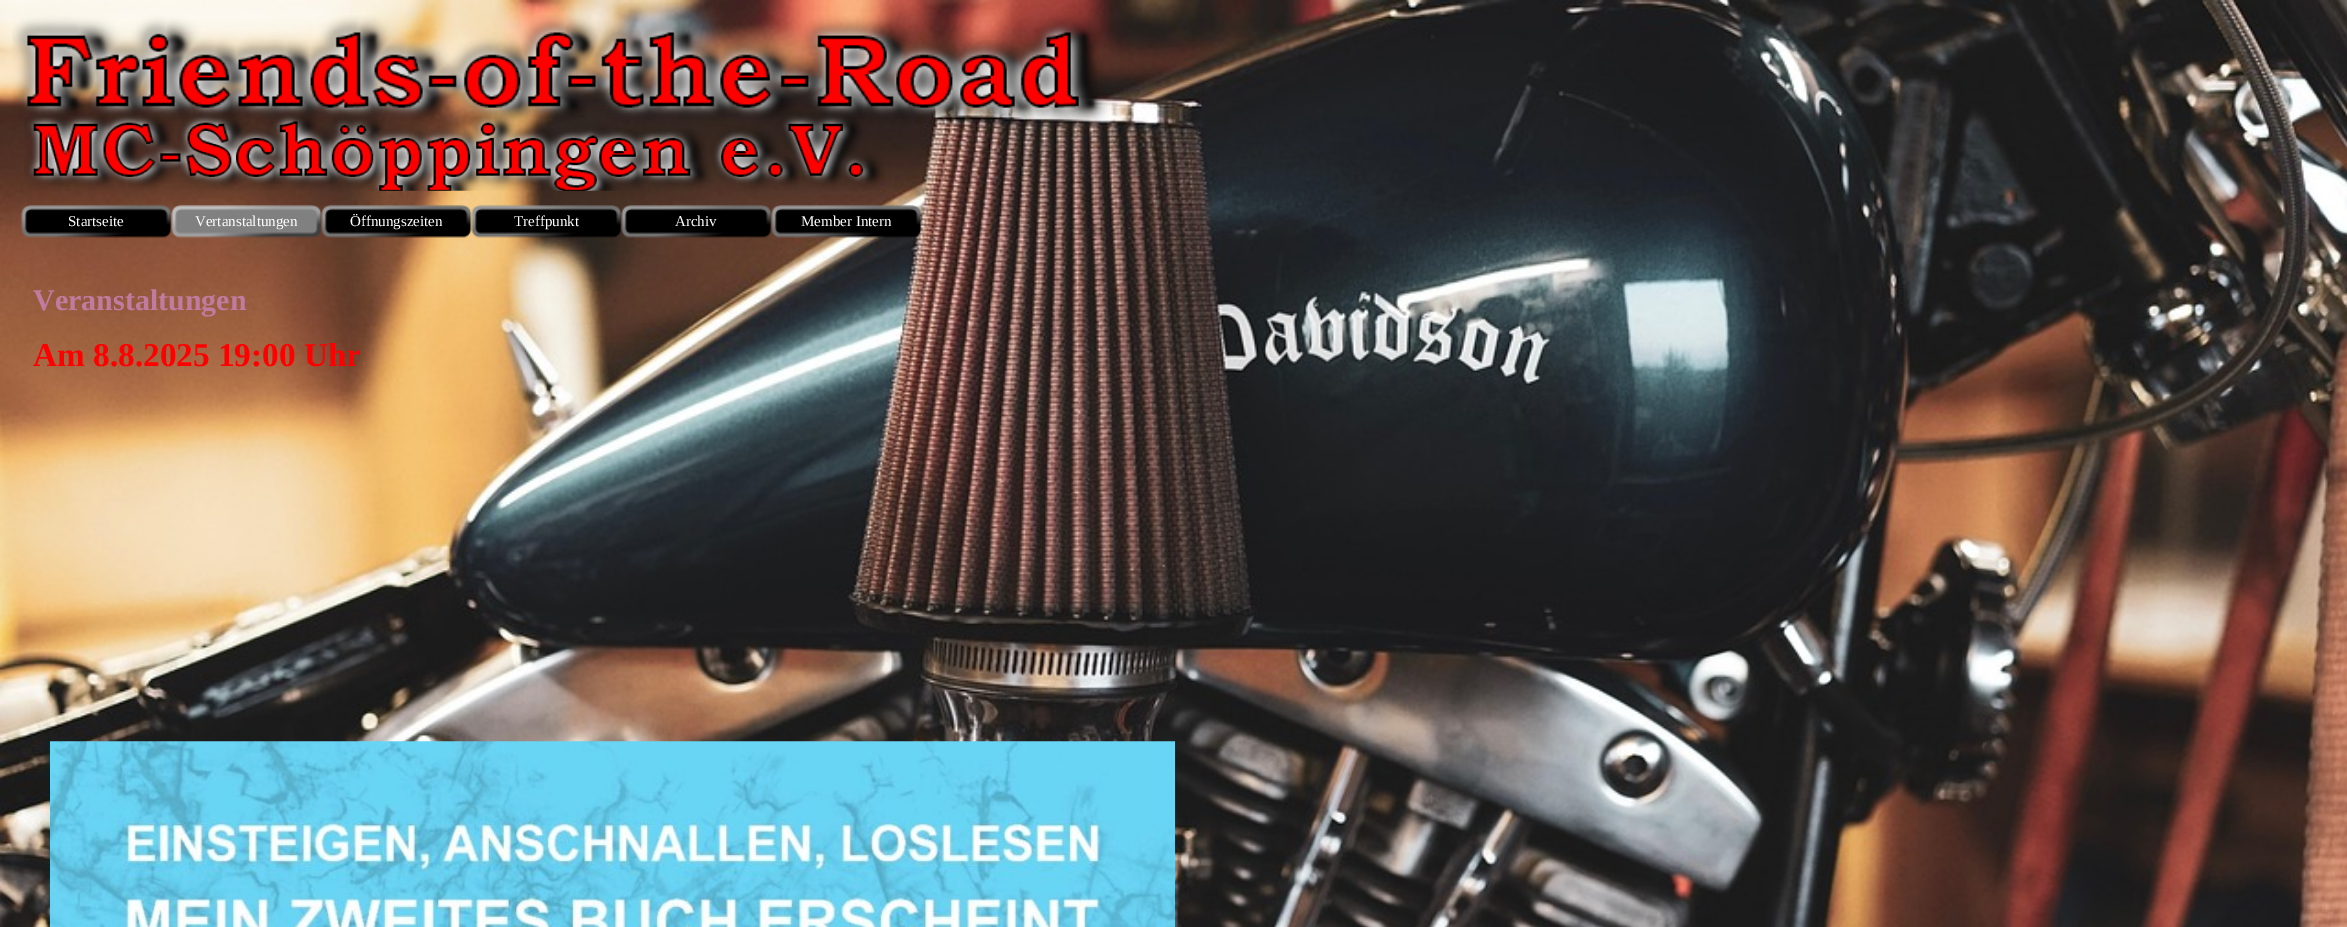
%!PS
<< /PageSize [2347 927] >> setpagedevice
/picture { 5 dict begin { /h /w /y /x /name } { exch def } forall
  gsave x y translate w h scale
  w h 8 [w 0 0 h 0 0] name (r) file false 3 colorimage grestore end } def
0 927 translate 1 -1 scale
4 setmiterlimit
1 setgray
0 0 2347 927 rectfill
(img1.rgb) 0 0 2347 927 picture
(img2.rgb) 12 15 1098 112 picture
(img3.rgb) 24 110 861 81 picture
(img4.rgb) 21 205 151 33 picture
/LiberationSerif-Regular [15 0 0 -15 0 0] selectfont
68 226 moveto (Startseite) show
(img5.rgb) 171 205 151 33 picture
195 226 moveto (Vertanstaltungen) show
(img6.rgb) 321 205 151 33 picture
350 226 moveto (Öffnungszeiten) show
(img7.rgb) 471 205 151 33 picture
514 226 moveto (Treffpunkt) show
(img8.rgb) 621 205 151 33 picture
675 226 moveto (Archiv) show
(img9.rgb) 771 205 151 33 picture
801 226 moveto (Member Intern) show
/LiberationSerif-Bold [30 0 0 -30 0 0] selectfont
0.761 0.482 0.627 setrgbcolor
33 310 moveto (Veranstaltungen) show
/LiberationSerif-Bold [33.25 0 0 -33.25 0 0] selectfont
1 0 0 setrgbcolor
33 366 moveto (Am 8.8.2025 19:00 Uhr) show
(img10.rgb) 50 741 1125 186 picture
showpage
